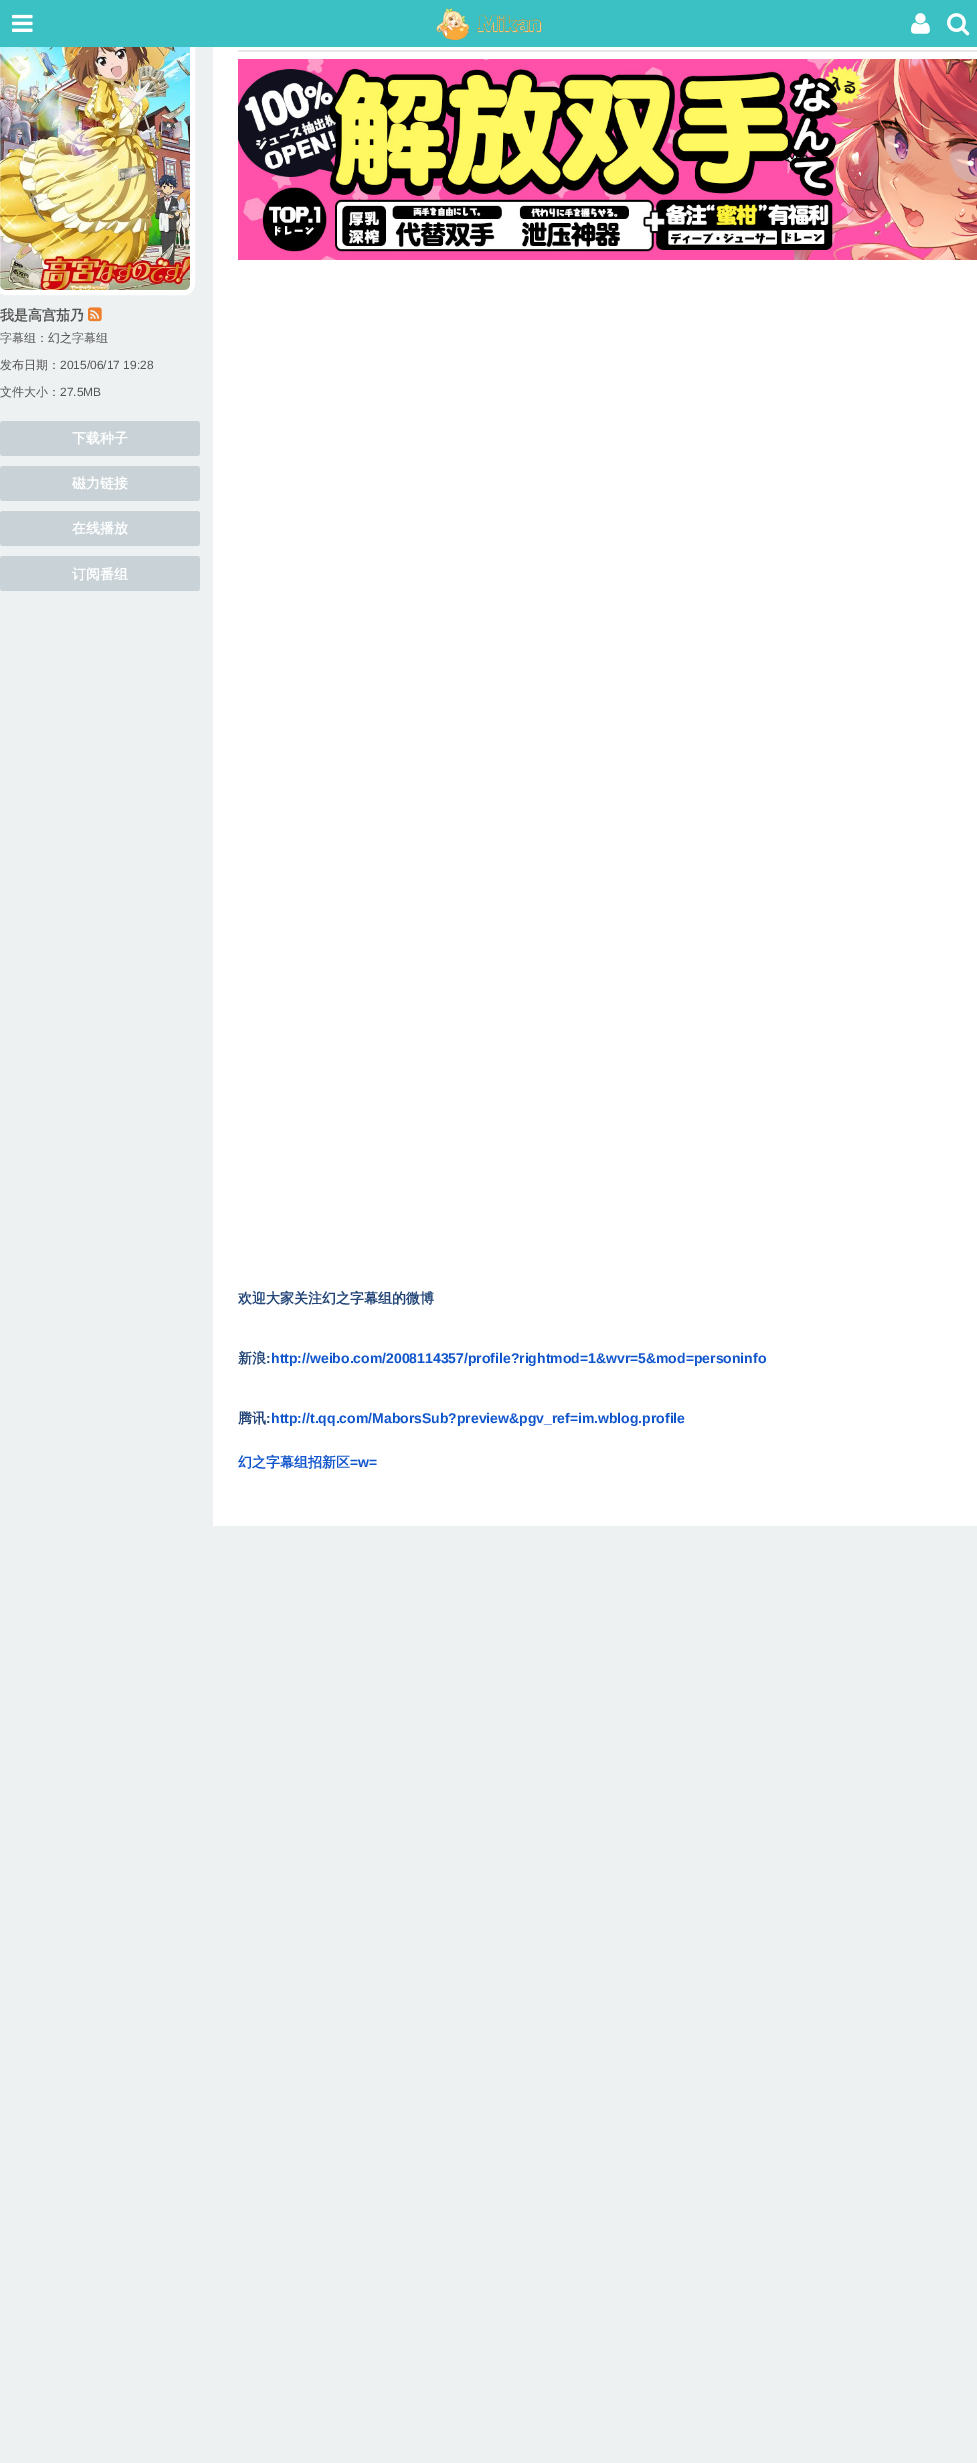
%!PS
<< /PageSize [977 2463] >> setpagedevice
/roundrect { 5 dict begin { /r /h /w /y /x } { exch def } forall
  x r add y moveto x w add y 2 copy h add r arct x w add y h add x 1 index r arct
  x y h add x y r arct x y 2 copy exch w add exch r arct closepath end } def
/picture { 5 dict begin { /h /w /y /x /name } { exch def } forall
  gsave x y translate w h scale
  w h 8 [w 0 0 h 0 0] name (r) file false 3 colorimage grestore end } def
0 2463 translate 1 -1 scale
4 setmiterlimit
0.929 0.945 0.949 setrgbcolor
0 0 977 2463 rectfill
(img6.rgb) 0 47 195 248 picture
1 setgray
5 setlinewidth
-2.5 17.5 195 275 7.5 roundrect stroke
0.231 0.753 0.765 setrgbcolor
0 0 977 47 rectfill
(img1.rgb) 12 14 21 18 picture
(img2.rgb) 436 8 34 33 picture
(img3.rgb) 477 15 65 18 picture
(img4.rgb) 911 13 19 21 picture
(img5.rgb) 947 13 23 23 picture
/WenQuanYiZenHei-Bold [14 0 0 -14 0 0] selectfont
0.333 setgray
0 320 moveto (我是高宫茄乃) show
(img7.rgb) 88 307 14 15 picture
/WenQuanYiZenHei-Medium [12 0 0 -12 0 0] selectfont
0 342 moveto (字幕组：幻之字幕组) show
0 369 moveto (发布日期：) show
/LiberationSans-Regular [12 0 0 -12 0 0] selectfont
60 369 moveto (2015/06/17 19:28) show
/WenQuanYiZenHei-Medium [12 0 0 -12 0 0] selectfont
0 396 moveto (文件大小：) show
/LiberationSans-Regular [12 0 0 -12 0 0] selectfont
60 396 moveto (27.5MB) show
0.784 0.824 0.843 setrgbcolor
0 421 200 35 3 roundrect fill
/WenQuanYiZenHei-Bold [14 0 0 -14 0 0] selectfont
1 setgray
72 443 moveto (下载种子) show
0.784 0.824 0.843 setrgbcolor
0 466 200 35 3 roundrect fill
1 setgray
72 488 moveto (磁力链接) show
0.784 0.824 0.843 setrgbcolor
0 511 200 35 3 roundrect fill
1 setgray
72 533 moveto (在线播放) show
0.784 0.824 0.843 setrgbcolor
0 556 200 35 3 roundrect fill
1 setgray
72 579 moveto (订阅番组) show
213 47 764 1479 rectfill
0.91 setgray
238 50 739 2 rectfill
(img8.rgb) 238 59 739 201 picture
0.133 0.267 0.467 setrgbcolor
238 1303 moveto (欢迎大家关注幻之字幕组的微博) show
238 1363 moveto (新浪) show
/LiberationSans-Bold [14 0 0 -14 0 0] selectfont
266 1363 moveto (:) show
0.067 0.333 0.8 setrgbcolor
271 1363 moveto (http://weibo.com/2008114357/profile?rightmod=1&wvr=5&mod=personinfo) show
/WenQuanYiZenHei-Bold [14 0 0 -14 0 0] selectfont
0.133 0.267 0.467 setrgbcolor
238 1423 moveto (腾讯) show
/LiberationSans-Bold [14 0 0 -14 0 0] selectfont
266 1423 moveto (:) show
0.067 0.333 0.8 setrgbcolor
271 1423 moveto (http://t.qq.com/MaborsSub?preview&pgv_ref=im.wblog.profile) show
/WenQuanYiZenHei-Bold [14 0 0 -14 0 0] selectfont
238 1467 moveto (幻之字幕组招新区) show
/LiberationSans-Bold [14 0 0 -14 0 0] selectfont
350 1467 moveto (=w=) show
showpage
